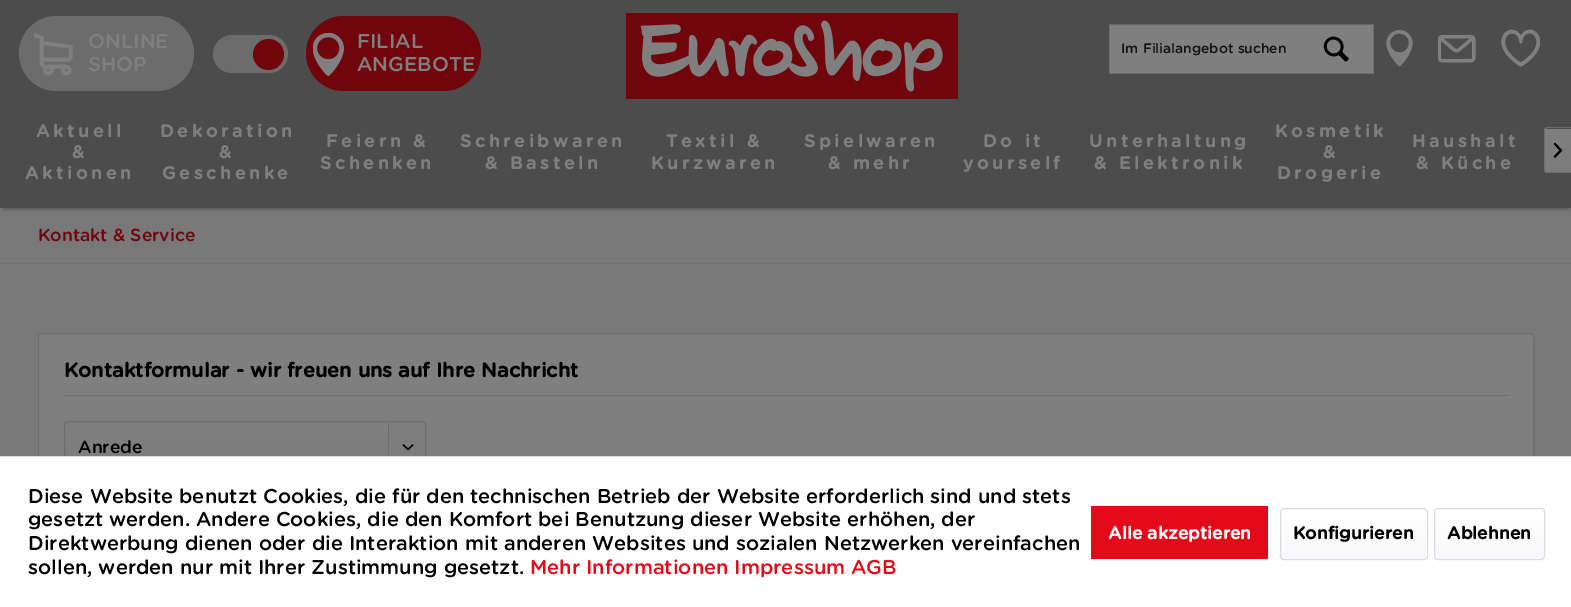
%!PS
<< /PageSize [1571 607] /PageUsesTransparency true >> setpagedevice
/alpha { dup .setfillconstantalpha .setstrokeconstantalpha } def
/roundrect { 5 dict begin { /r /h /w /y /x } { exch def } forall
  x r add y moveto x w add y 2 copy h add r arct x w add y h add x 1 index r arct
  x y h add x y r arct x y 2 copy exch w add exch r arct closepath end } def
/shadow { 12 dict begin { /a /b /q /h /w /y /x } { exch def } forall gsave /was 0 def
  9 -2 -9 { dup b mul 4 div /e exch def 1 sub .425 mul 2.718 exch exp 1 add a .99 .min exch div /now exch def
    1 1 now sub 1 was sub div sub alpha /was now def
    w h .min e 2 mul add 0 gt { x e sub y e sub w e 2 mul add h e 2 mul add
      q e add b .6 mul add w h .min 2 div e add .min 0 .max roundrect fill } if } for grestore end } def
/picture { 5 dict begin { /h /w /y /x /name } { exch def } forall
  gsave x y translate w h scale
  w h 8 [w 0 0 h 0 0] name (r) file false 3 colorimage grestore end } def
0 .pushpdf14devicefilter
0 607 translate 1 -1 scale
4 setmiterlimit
0.941 setgray
0 0 1571 607 rectfill
0 setgray
3 8 1566 202 0 1 0.2 shadow
0.6 setgray
0 0 1571 208 rectfill
0.851 setgray
19 16 175 75 37.5 roundrect fill
(img1.rgb) 33 33 40 43 picture
/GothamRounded-Medium [20 0 0 -20 0 0] selectfont
1 setgray
88 48 moveto (ONLINE) show
88 71 moveto (SHOP) show
0.851 setgray
213 35 75 38 19 roundrect fill
0.89 0.043 0.098 setrgbcolor
newpath 268.5 54.5 15.5 0 360 arc closepath fill
306 16 175 75 37.5 roundrect fill
(img2.rgb) 313 33 31 43 picture
1 setgray
357 48 moveto (FILIAL) show
357 71 moveto (ANGEBOTE) show
0.89 0.043 0.098 setrgbcolor
626 13 332 86 rectfill
(img3.rgb) 640 20 303 72 picture
1 setgray
1110 25 263 48 rectfill
0.796 0.796 0.859 setrgbcolor
1109 24 265 1 rectfill
0.855 0.855 0.898 setrgbcolor
1373 24 1 50 rectfill
1109 73 265 1 rectfill
1109 24 1 50 rectfill
/GothamRounded-Medium [13.75 0 0 -13.75 0 0] selectfont
0.149 setgray
1121 53 moveto (Im Filialangebot suchen) show
(img4.rgb) 1323 36 26 26 picture
(img5.rgb) 1386 30 27 37 picture
(img6.rgb) 1438 34 38 29 picture
(img7.rgb) 1501 29 39 38 picture
/GothamRounded-Bold [17.5 0 0 -17.5 0 0] selectfont
1 setgray
36 137 moveto 3.75 0 (Aktuell) ashow
72 158 moveto 3.75 0 (&) ashow
25 179 moveto 3.75 0 (Aktionen) ashow
160 137 moveto 3.75 0 (Dekoration) ashow
219 158 moveto 3.75 0 (&) ashow
162 179 moveto 3.75 0 (Geschenke) ashow
326 147 moveto 3.75 0 (Feiern &) ashow
320 169 moveto 3.75 0 (Schenken) ashow
460 147 moveto 3.75 0 (Schreibwaren) ashow
485 169 moveto 3.75 0 (& Basteln) ashow
666 147 moveto 3.75 0 (Textil &) ashow
651 169 moveto 3.75 0 (Kurzwaren) ashow
804 147 moveto 3.75 0 (Spielwaren) ashow
828 169 moveto 3.75 0 (& mehr) ashow
983 147 moveto 3.75 0 (Do it) ashow
963 169 moveto 3.75 0 (yourself) ashow
1089 147 moveto 3.75 0 (Unterhaltung) ashow
1094 169 moveto 3.75 0 (& Elektronik) ashow
1275 137 moveto 3.75 0 (Kosmetik) ashow
1323 158 moveto 3.75 0 (&) ashow
1277 179 moveto 3.75 0 (Drogerie) ashow
1412 147 moveto 3.75 0 (Haushalt) ashow
1416 169 moveto 3.75 0 (& Küche) ashow
gsave newpath 1547.5 129 moveto 1571 129 lineto 1571 173 lineto 1547.5 173 lineto 1546 173 1545 172 1545 170.5 curveto 1545 131.5 lineto 1545 130 1546 129 1547.5 129 curveto closepath clip newpath
<< /ShadingType 2 /ColorSpace /DeviceRGB /Coords [1558 128 1558 172] /Extend [true true] /Function << /FunctionType 2 /Domain [0 1] /C0 [1 1 1] /C1 [0.973 0.973 0.98] /N 1 >> >> shfill grestore
0.855 0.855 0.898 setrgbcolor
newpath 1548 127 moveto 1571 127 lineto 1571 173 lineto 1548 173 lineto 1545 173 1544 171 1544 169 curveto 1544 131 lineto 1544 129 1545 127 1548 127 curveto closepath 1548 128 moveto 1571 128 lineto 1571 172 lineto 1548 172 lineto 1546 172 1545 171 1545 169 curveto 1545 131 lineto 1545 129 1546 128 1548 128 curveto closepath eofill
(img8.rgb) 1553 142 10 16 picture
0 263 1571 1 rectfill
/GothamRounded-Medium [17.5 0 0 -17.5 0 0] selectfont
0.89 0.043 0.098 setrgbcolor
38 241 moveto (Kontakt & Service) show
1 setgray
39 334 1494 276 2.5 roundrect fill
0.855 0.855 0.898 setrgbcolor
38.5 333.5 1495 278 3.5 roundrect stroke
64 395 1444 1 rectfill
/GothamRounded-Bold [20 0 0 -20 0 0] selectfont
0 setgray
64 377 moveto (Kontaktformular - wir freuen uns auf Ihre Nachricht) show
gsave 65 423 360 50 2.5 roundrect clip newpath
<< /ShadingType 2 /ColorSpace /DeviceRGB /Coords [245 423 245 473] /Extend [true true] /Function << /FunctionType 2 /Domain [0 1] /C0 [1 1 1] /C1 [0.973 0.973 0.98] /N 1 >> >> shfill grestore
0.855 0.855 0.898 setrgbcolor
64.5 421.5 361 52 3.5 roundrect stroke
/GothamRounded-Medium [17.5 0 0 -17.5 0 0] selectfont
0 setgray
78 453 moveto (Anrede) show
0.855 0.855 0.898 setrgbcolor
388 423 1 33 rectfill
(img9.rgb) 402 444 12 7 picture
1 setgray
0 457 1571 150 rectfill
0.855 0.855 0.898 setrgbcolor
0 456 1571 1 rectfill
0.5 alpha
0 setgray
0 0 1571 456 rectfill
/GothamRounded-Medium [20 0 0 -20 0 0] selectfont
1 alpha
28 503 moveto (Diese Website benutzt Cookies, die für den technischen Betrieb der Website erforderlich sind und stets) show
28 526 moveto (gesetzt werden. Andere Cookies, die den Komfort bei Benutzung dieser Website erhöhen, der) show
28 550 moveto (Direktwerbung dienen oder die Interaktion mit anderen Websites und sozialen Netzwerken vereinfachen) show
28 574 moveto (sollen, werden nur mit Ihrer Zustimmung gesetzt.) show
0.89 0.043 0.098 setrgbcolor
530 574 moveto (Mehr Informationen Impressum AGB) show
1091 506 177 53 rectfill
/GothamRounded-Bold [17.5 0 0 -17.5 0 0] selectfont
1 setgray
1108 539 moveto (Alle akzeptieren) show
gsave 1281 509 145 50 2.5 roundrect clip newpath
<< /ShadingType 2 /ColorSpace /DeviceRGB /Coords [1354 509 1354 559] /Extend [true true] /Function << /FunctionType 2 /Domain [0 1] /C0 [1 1 1] /C1 [0.973 0.973 0.98] /N 1 >> >> shfill grestore
0.855 0.855 0.898 setrgbcolor
1280.5 508.5 147 51 3.5 roundrect stroke
0 setgray
1293 539 moveto (Konfigurieren) show
gsave 1435 509 109 50 2.5 roundrect clip newpath
<< /ShadingType 2 /ColorSpace /DeviceRGB /Coords [1489 509 1489 559] /Extend [true true] /Function << /FunctionType 2 /Domain [0 1] /C0 [1 1 1] /C1 [0.973 0.973 0.98] /N 1 >> >> shfill grestore
0.855 0.855 0.898 setrgbcolor
1434.5 508.5 110 51 3.5 roundrect stroke
0 setgray
1447 539 moveto (Ablehnen) show
.poppdf14devicefilter showpage
